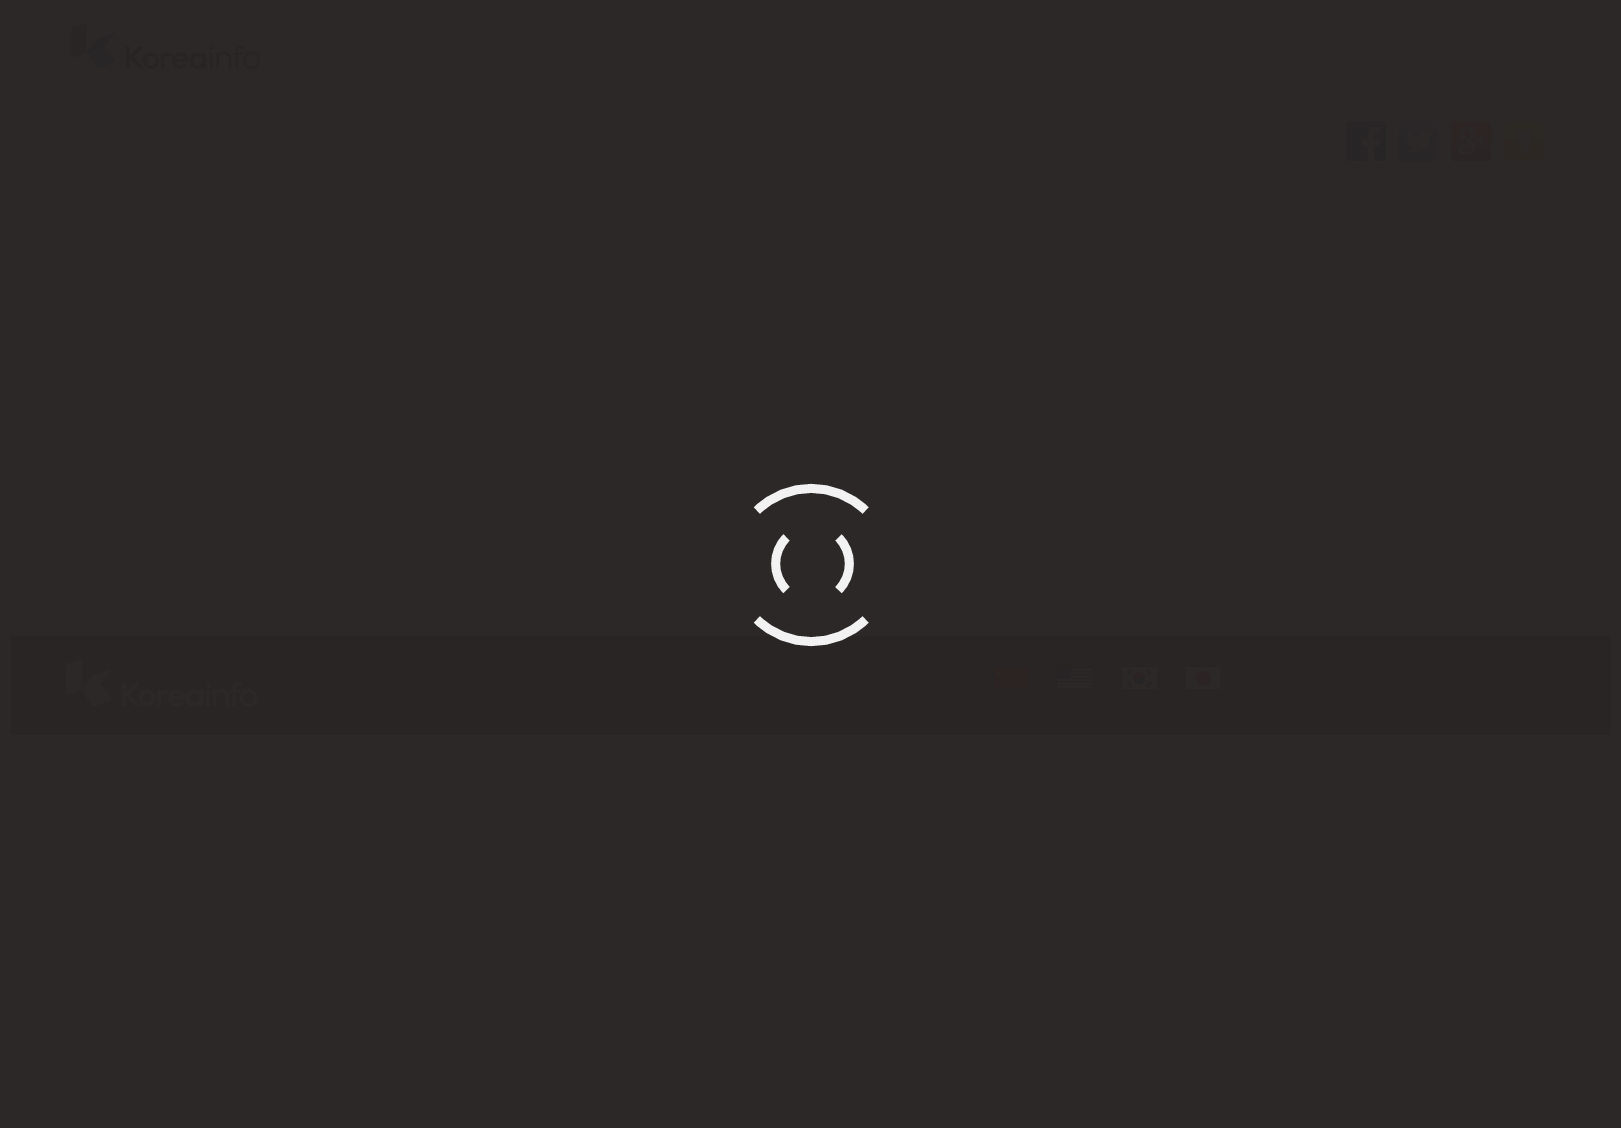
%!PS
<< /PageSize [1621 1128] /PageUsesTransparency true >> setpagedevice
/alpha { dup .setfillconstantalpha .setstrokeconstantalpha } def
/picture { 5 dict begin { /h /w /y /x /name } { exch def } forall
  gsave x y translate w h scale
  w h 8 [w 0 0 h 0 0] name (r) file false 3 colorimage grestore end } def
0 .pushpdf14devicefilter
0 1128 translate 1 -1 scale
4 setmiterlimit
0.173 0.157 0.157 setrgbcolor
0 0 1621 1128 rectfill
(img1.rgb) 70 22 191 49 picture
(img2.rgb) 1346 121 41 41 picture
(img3.rgb) 1398 121 41 41 picture
(img4.rgb) 1451 121 41 41 picture
(img5.rgb) 1503 121 41 41 picture
0.161 0.145 0.145 setrgbcolor
11 636 1600 99 rectfill
(img6.rgb) 66 660 192 48 picture
(img7.rgb) 992 666 37 24 picture
(img8.rgb) 1056 666 37 24 picture
(img9.rgb) 1121 666 37 24 picture
(img10.rgb) 1185 666 37 24 picture
0.949 setgray
8.8 setlinewidth
newpath 757 510.5 moveto 787 481 835.5 481 865.5 510.5 curveto stroke
0.94 alpha
1 setgray
newpath 865.5 619.5 moveto 835.5 649 787 649 757 619.5 curveto stroke
1 alpha
0.949 setgray
newpath 838.5 537.5 moveto 853 552 853 575.5 838.5 590 curveto stroke
newpath 786.5 590 moveto 772 575.5 772 552 786.5 537.5 curveto stroke
.poppdf14devicefilter showpage
